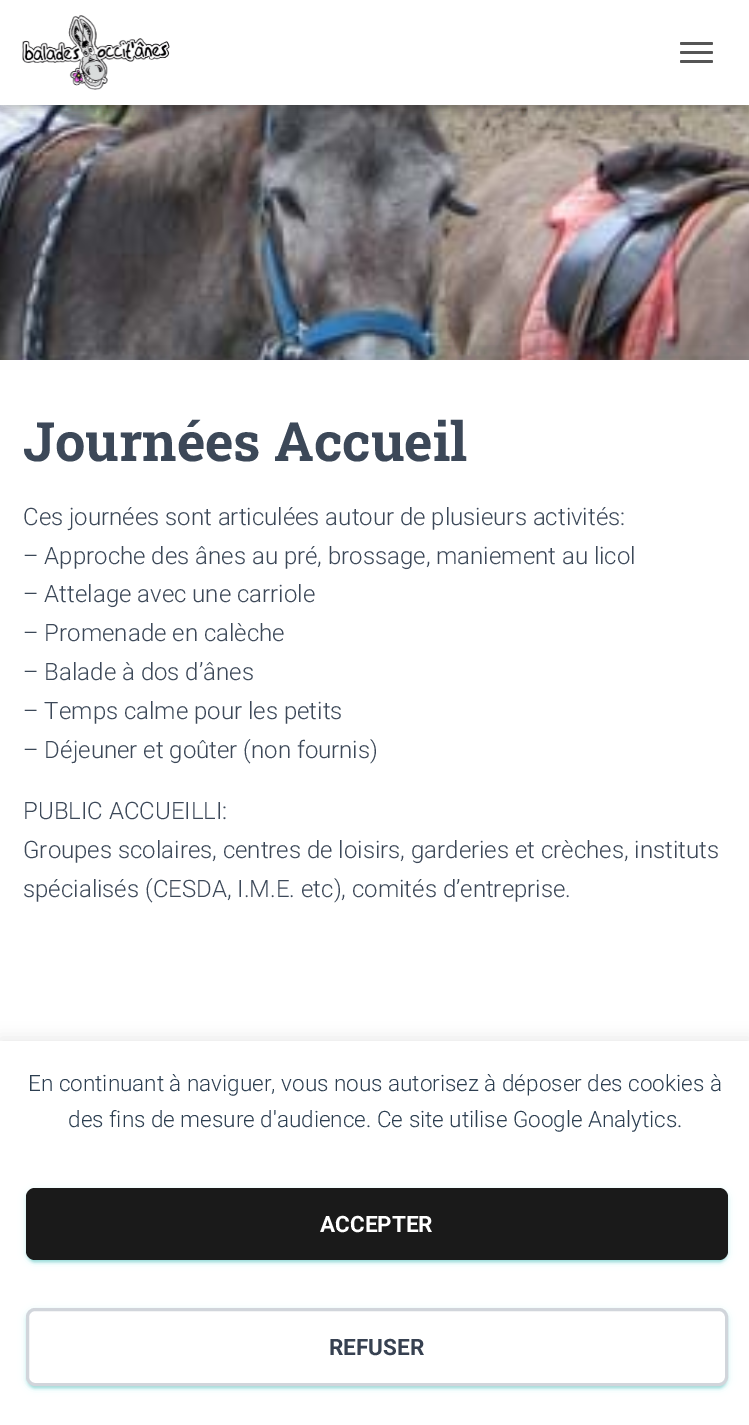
%!PS
<< /PageSize [749 1425] /PageUsesTransparency true >> setpagedevice
/alpha { dup .setfillconstantalpha .setstrokeconstantalpha } def
/roundrect { 5 dict begin { /r /h /w /y /x } { exch def } forall
  x r add y moveto x w add y 2 copy h add r arct x w add y h add x 1 index r arct
  x y h add x y r arct x y 2 copy exch w add exch r arct closepath end } def
/shadow { 12 dict begin { /a /b /q /h /w /y /x } { exch def } forall gsave /was 0 def
  9 -2 -9 { dup b mul 4 div /e exch def 1 sub .425 mul 2.718 exch exp 1 add a .99 .min exch div /now exch def
    1 1 now sub 1 was sub div sub alpha /was now def
    w h .min e 2 mul add 0 gt { x e sub y e sub w e 2 mul add h e 2 mul add
      q e add b .6 mul add w h .min 2 div e add .min 0 .max roundrect fill } if } for grestore end } def
/picture { 5 dict begin { /h /w /y /x /name } { exch def } forall
  gsave x y translate w h scale
  w h 8 [w 0 0 h 0 0] name (r) file false 3 colorimage grestore end } def
0 .pushpdf14devicefilter
0 1425 translate 1 -1 scale
4 setmiterlimit
1 setgray
0 0 749 1425 rectfill
(img2.rgb) 0 105 749 255 picture
0 setgray
3 9 744 99 0 4 0.1 shadow
0 2 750 105 0 7.5 0.12 shadow
9 11 732 87 0 7.5 0.42 shadow
1 setgray
0 0 749 105 rectfill
(img1.rgb) 22 15 148 75 picture
0.333 setgray
680 42 33 3 1.5 roundrect fill
680 51 33 3 1.5 roundrect fill
680 60 33 3 1.5 roundrect fill
0 setgray
-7 362 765 709 0 22.5 0.12 shadow
1 setgray
0 360 749 681 rectfill
/RobotoSlab-Bold [54 0 0 -54 0 0] selectfont
0.235 0.282 0.345 setrgbcolor
23 461 moveto (Journées Accueil) show
/Roboto-Light [24 0 0 -24 0 0] selectfont
23 525 moveto (Ces journées sont articulées autour de plusieurs activités:) show
23 564 moveto (– Approche des ânes au pré, brossage, maniement au licol) show
23 602 moveto (– Attelage avec une carriole) show
23 641 moveto (– Promenade en calèche) show
23 680 moveto (– Balade à dos d’ânes) show
23 719 moveto (– Temps calme pour les petits) show
23 758 moveto (– Déjeuner et goûter \(non fournis\)) show
23 819 moveto (PUBLIC ACCUEILLI:) show
23 858 moveto (Groupes scolaires, centres de loisirs, garderies et crèches, instituts) show
23 897 moveto (spécialisés \(CESDA, I.M.E. etc\), comités d’entreprise.) show
0 setgray
0 1038 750 384 0 7.5 0.08 shadow
1 setgray
0 1041 749 384 rectfill
/Roboto-Light [22.5 0 0 -22.5 0 0] selectfont
0.173 0.243 0.314 setrgbcolor
28 1091 moveto (En continuant à naviguer, vous nous autorisez à déposer des cookies à) show
68 1127 moveto (des fins de mesure d'audience. Ce site utilise Google Analytics.) show
0.024 0.647 0.627 setrgbcolor
26 1190 702 72 9 4 0.12 shadow
29 1196 696 66 6 1 0.2 shadow
26 1191 702 72 9 1.5 0.14 shadow
0.102 setgray
26 1188 702 72 9 roundrect fill
/Roboto-Bold [22.5 0 0 -22.5 0 0] selectfont
1 setgray
320 1232 moveto (ACCEPTER) show
0.024 0.647 0.627 setrgbcolor
26 1310 702 78 9 4 0.12 shadow
29 1316 696 72 6 1 0.2 shadow
26 1311 702 78 9 1.5 0.14 shadow
1 setgray
27.5 1309.5 699 75 7.5 roundrect gsave fill grestore
0.82 0.835 0.859 setrgbcolor
3 setlinewidth
stroke
0.216 0.255 0.318 setrgbcolor
329 1355 moveto (REFUSER) show
.poppdf14devicefilter showpage
